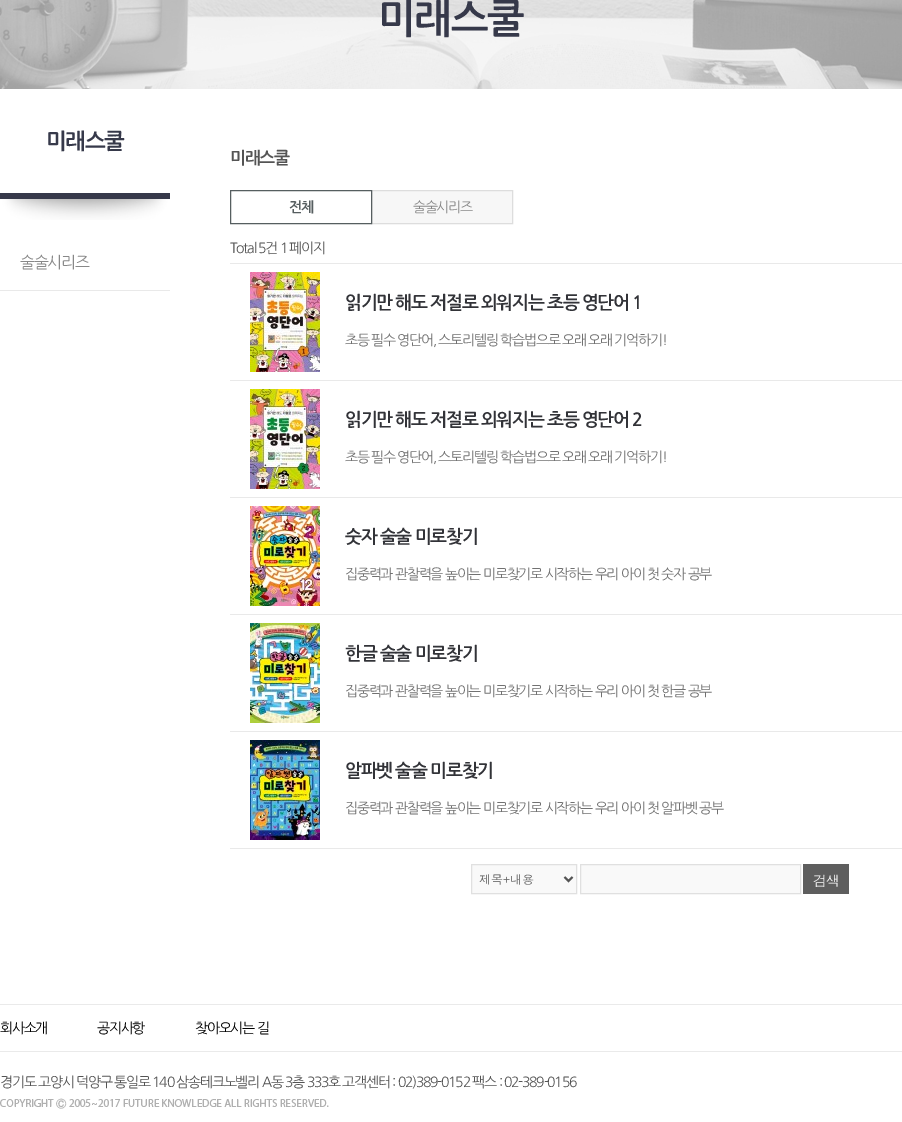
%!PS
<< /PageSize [902 1122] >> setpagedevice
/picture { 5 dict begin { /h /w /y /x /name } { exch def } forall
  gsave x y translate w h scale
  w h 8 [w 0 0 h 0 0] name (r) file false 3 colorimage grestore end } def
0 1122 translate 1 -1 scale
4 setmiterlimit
1 setgray
0 0 902 1122 rectfill
(img1.rgb) 0 0 902 89 picture
/NanumGothic-Bold [40 0 0 -40 0 0] selectfont
0.212 0.224 0.29 setrgbcolor
378 33 moveto -1.33 0 (미래스쿨) ashow
/NanumGothic-Bold [22 0 0 -22 0 0] selectfont
46 149 moveto -1.33 0 (미래스쿨) ashow
(img2.rgb) 0 193 170 27 picture
0.914 setgray
0 290 170 1 rectfill
/NanumGothic-Regular [16 0 0 -16 0 0] selectfont
0.533 setgray
20 268 moveto -1.33 0 (술술시리즈) ashow
/NanumGothic-Bold [17 0 0 -17 0 0] selectfont
0.329 setgray
230 164 moveto -1.33 0 (미래스쿨) ashow
0.969 setgray
newpath 371.5 190.5 moveto 512.5 190.5 lineto 512.5 223.5 lineto 371.5 223.5 lineto closepath gsave fill grestore
0.867 setgray
stroke
0.337 0.369 0.376 setrgbcolor
230.5 190.5 141 33 rectstroke
/NanumGothic-Bold [14 0 0 -14 0 0] selectfont
289 212 moveto -1.5 0 (전체) ashow
/NanumGothic-Regular [14 0 0 -14 0 0] selectfont
0.533 setgray
413 212 moveto -1.5 0 (술술시리즈) ashow
0.329 setgray
230 253 moveto -1.33 0 (Total 5건 1 페이지) ashow
(img3.rgb) 250 272 70 100 picture
0.914 setgray
230 263 672 1 rectfill
/NanumGothic-Bold [18 0 0 -18 0 0] selectfont
0.196 0.2 0.22 setrgbcolor
345 309 moveto -1.33 0 (읽기만 해도 저절로 외워지는 초등 영단어 1) ashow
/NanumGothic-Regular [14 0 0 -14 0 0] selectfont
0.443 setgray
345 345 moveto -1.33 0 (초등 필수 영단어, 스토리텔링 학습법으로 오래 오래 기억하기!) ashow
(img4.rgb) 250 389 70 100 picture
0.914 setgray
230 380 672 1 rectfill
/NanumGothic-Bold [18 0 0 -18 0 0] selectfont
0.196 0.2 0.22 setrgbcolor
345 426 moveto -1.33 0 (읽기만 해도 저절로 외워지는 초등 영단어 2) ashow
/NanumGothic-Regular [14 0 0 -14 0 0] selectfont
0.443 setgray
345 462 moveto -1.33 0 (초등 필수 영단어, 스토리텔링 학습법으로 오래 오래 기억하기!) ashow
(img5.rgb) 250 506 70 100 picture
0.914 setgray
230 497 672 1 rectfill
/NanumGothic-Bold [18 0 0 -18 0 0] selectfont
0.196 0.2 0.22 setrgbcolor
345 543 moveto -1.33 0 (숫자 술술 미로찾기) ashow
/NanumGothic-Regular [14 0 0 -14 0 0] selectfont
0.443 setgray
345 579 moveto -1.33 0 (집중력과 관찰력을 높이는 미로찾기로 시작하는 우리 아이 첫 숫자 공부) ashow
(img6.rgb) 250 623 70 100 picture
0.914 setgray
230 614 672 1 rectfill
/NanumGothic-Bold [18 0 0 -18 0 0] selectfont
0.196 0.2 0.22 setrgbcolor
345 660 moveto -1.33 0 (한글 술술 미로찾기) ashow
/NanumGothic-Regular [14 0 0 -14 0 0] selectfont
0.443 setgray
345 696 moveto -1.33 0 (집중력과 관찰력을 높이는 미로찾기로 시작하는 우리 아이 첫 한글 공부) ashow
(img7.rgb) 250 740 70 100 picture
0.914 setgray
230 731 672 1 rectfill
230 848 672 1 rectfill
/NanumGothic-Bold [18 0 0 -18 0 0] selectfont
0.196 0.2 0.22 setrgbcolor
345 777 moveto -1.33 0 (알파벳 술술 미로찾기) ashow
/NanumGothic-Regular [14 0 0 -14 0 0] selectfont
0.443 setgray
345 813 moveto -1.33 0 (집중력과 관찰력을 높이는 미로찾기로 시작하는 우리 아이 첫 알파벳 공부) ashow
0.976 setgray
newpath 471.5 864.5 moveto 576.5 864.5 lineto 576.5 893.5 lineto 471.5 893.5 lineto closepath gsave fill grestore
0.878 setgray
stroke
0.329 setgray
2 setlinewidth
newpath 564.5 877 moveto 568.5 881 lineto 572.5 877 lineto stroke
/Dotum-Regular [12 0 0 -12 0 0] selectfont
479 884 moveto (제목+내용) show
0.976 setgray
newpath 580.5 864.5 moveto 800.5 864.5 lineto 800.5 893.5 lineto 580.5 893.5 lineto closepath gsave fill grestore
0.878 setgray
1 setlinewidth
stroke
0.369 setgray
803 864 46 30 rectfill
/Dotum-Regular [14 0 0 -14 0 0] selectfont
1 setgray
813 886 moveto -1.5 0 (검색) ashow
0.918 setgray
0 1004 902 1 rectfill
0 1051 902 1 rectfill
/NanumGothic-Regular [14 0 0 -14 0 0] selectfont
0 setgray
0 1033 moveto -1.33 0 (회사소개) ashow
97 1033 moveto -1.33 0 (공지사항) ashow
195 1033 moveto -1.33 0 (찾아오시는 길) ashow
0.329 setgray
0 1087 moveto -1.33 0 (경기도 고양시 덕양구 통일로 140 삼송테크노벨리 A동 3층 333호 고객센터 : 02\)389-0152 팩스 : 02-389-0156) ashow
(img8.rgb) 0 1098 329 11 picture
showpage
